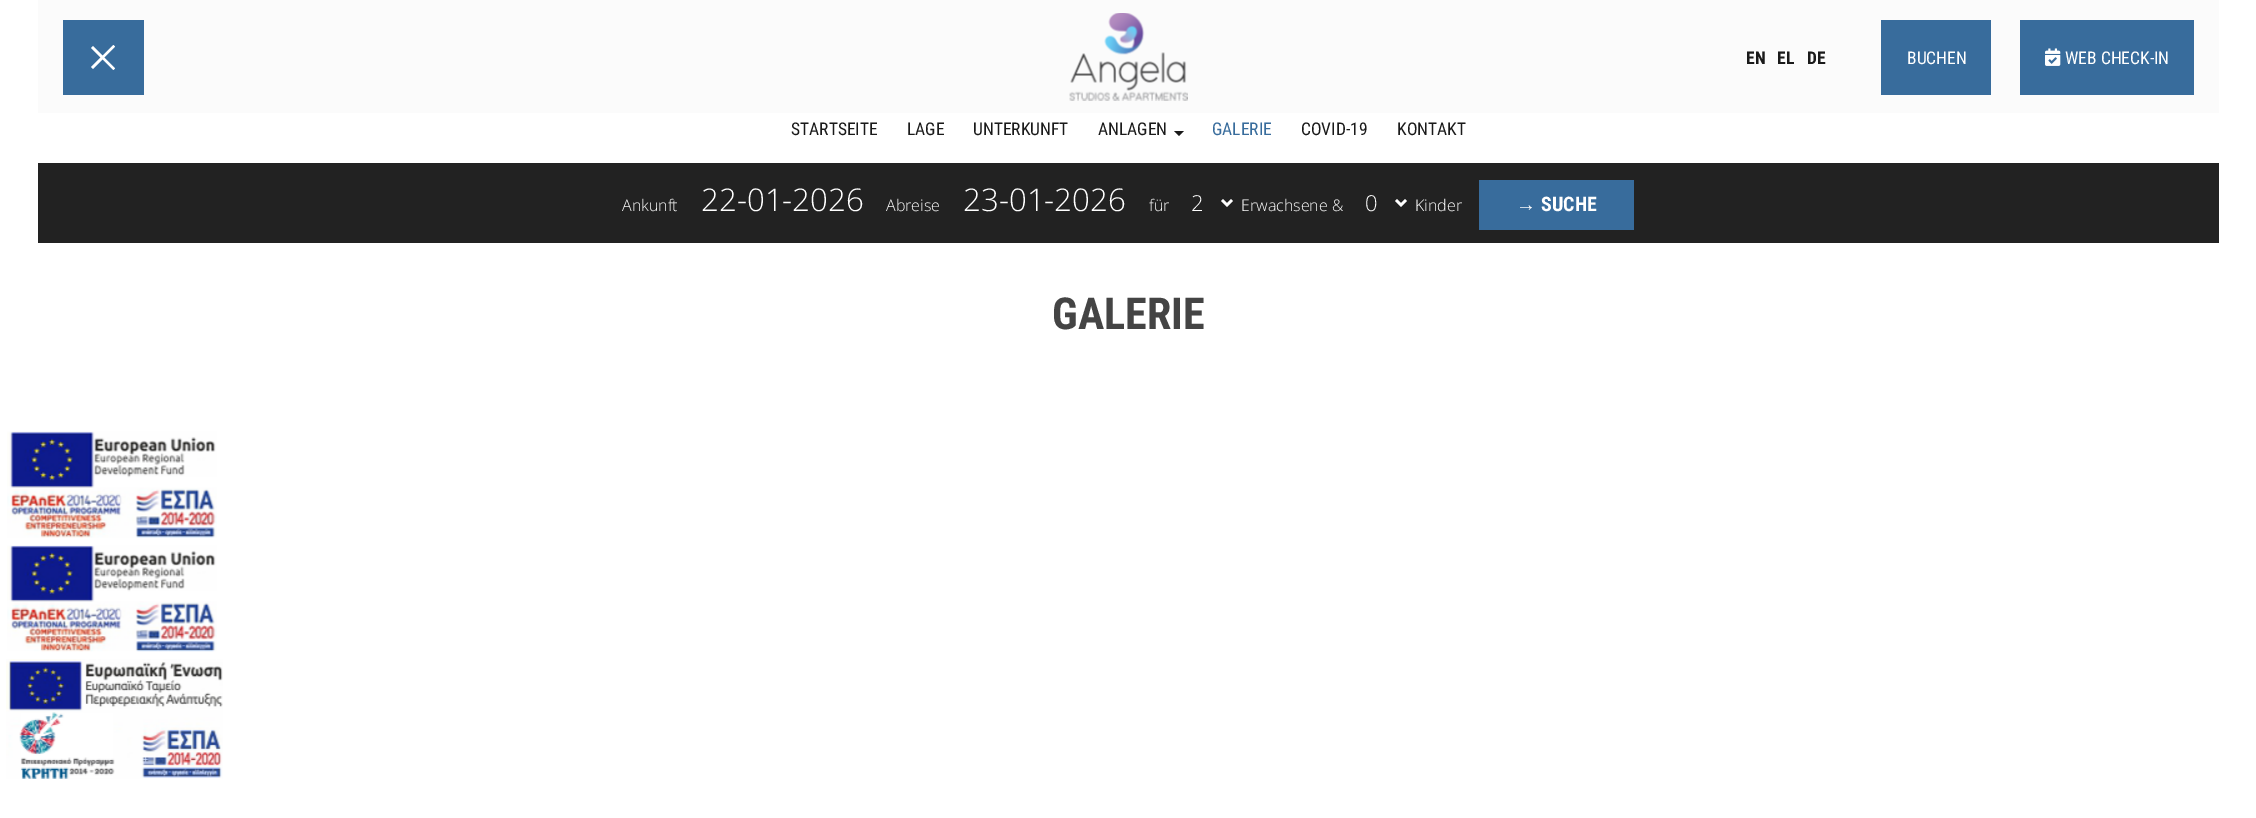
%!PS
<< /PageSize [2256 818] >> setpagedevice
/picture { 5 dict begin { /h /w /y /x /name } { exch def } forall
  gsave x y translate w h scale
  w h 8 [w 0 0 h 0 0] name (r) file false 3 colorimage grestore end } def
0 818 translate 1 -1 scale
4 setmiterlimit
1 setgray
0 0 2256 818 rectfill
0.984 setgray
38 0 2181 113 rectfill
0.22 0.424 0.612 setrgbcolor
63 20 81 75 rectfill
1 setgray
newpath 91 67 moveto 113.5 45 lineto 115 46.5 lineto 93 69 lineto closepath fill
newpath 93 46 moveto 115 68.5 lineto 113.5 70 lineto 91 48 lineto closepath fill
(img1.rgb) 1069 13 119 88 picture
/RobotoCondensed-Bold [17.5 0 0 -17.5 0 0] selectfont
0.102 setgray
1746 64 moveto (EN) show
1777 64 moveto (EL) show
1807 64 moveto (DE) show
0.22 0.424 0.612 setrgbcolor
1881 20 110 75 rectfill
/RobotoCondensed-Regular [17.5 0 0 -17.5 0 0] selectfont
1 setgray
1907 64 moveto (BUCHEN) show
0.22 0.424 0.612 setrgbcolor
2020 20 174 75 rectfill
(img2.rgb) 2045 48 16 18 picture
1 setgray
2065 64 moveto (WEB CHECK-IN) show
0.102 setgray
791 135 moveto (STARTSEITE) show
907 135 moveto (LAGE) show
973 135 moveto (UNTERKUNFT) show
1098 135 moveto (ANLAGEN) show
newpath 1174 131 moveto 1184 131 lineto 1179 136 lineto closepath fill
0.22 0.424 0.612 setrgbcolor
1212 135 moveto (GALERIE) show
0.102 setgray
1301 135 moveto (COVID-19) show
1397 135 moveto (KONTAKT) show
0.133 setgray
38 163 2181 80 rectfill
/OpenSans-Light [16 0 0 -16 0 0] selectfont
1 setgray
622 211 moveto (Ankunft) show
/OpenSans-Light [31.25 0 0 -31.25 0 0] selectfont
701 211 moveto (22-01-2026) show
/OpenSans-Light [16 0 0 -16 0 0] selectfont
886 211 moveto (Abreise) show
/OpenSans-Light [31.25 0 0 -31.25 0 0] selectfont
963 211 moveto (23-01-2026) show
/OpenSans-Light [16 0 0 -16 0 0] selectfont
1149 211 moveto (für) show
2.5 setlinewidth
newpath 1222 200 moveto 1227 205 lineto 1232 200 lineto stroke
/OpenSans-Light [22 0 0 -22 0 0] selectfont
1191 211 moveto (2) show
/OpenSans-Light [16 0 0 -16 0 0] selectfont
1241 211 moveto (Erwachsene &) show
newpath 1396 200 moveto 1401 205 lineto 1406 200 lineto stroke
/OpenSans-Light [22 0 0 -22 0 0] selectfont
1365 211 moveto (0) show
/OpenSans-Light [16 0 0 -16 0 0] selectfont
1415 211 moveto (Kinder) show
0.22 0.424 0.612 setrgbcolor
1479 180 155 50 rectfill
/LiberationSerif-Bold [20 0 0 -20 0 0] selectfont
1 setgray
1516 211 moveto (→) show
/RobotoCondensed-Bold [20 0 0 -20 0 0] selectfont
1541 211 moveto (SUCHE) show
/RobotoCondensed-Bold [44 0 0 -44 0 0] selectfont
0.267 setgray
1052 329 moveto (GALERIE) show
(img3.rgb) 7 431 210 107 picture
(img4.rgb) 7 545 210 107 picture
(img5.rgb) 6 659 217 120 picture
showpage
